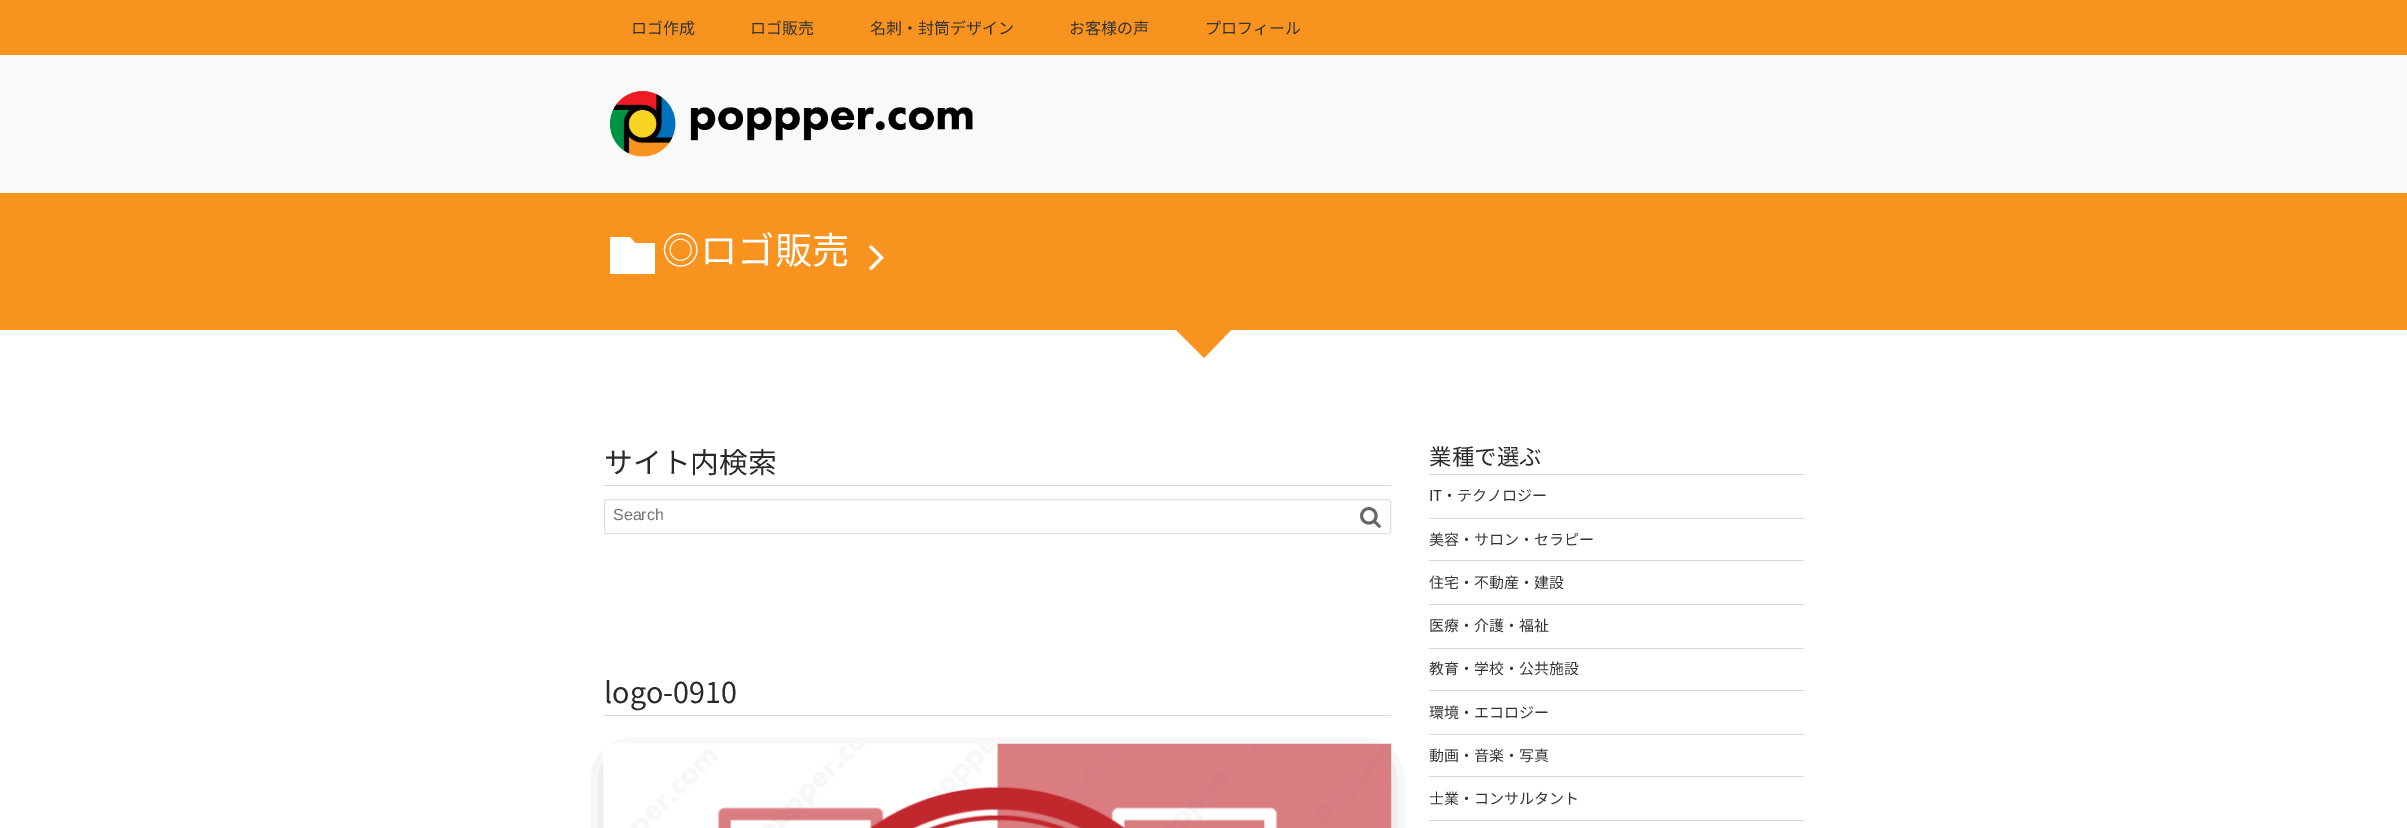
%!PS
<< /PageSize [2407 828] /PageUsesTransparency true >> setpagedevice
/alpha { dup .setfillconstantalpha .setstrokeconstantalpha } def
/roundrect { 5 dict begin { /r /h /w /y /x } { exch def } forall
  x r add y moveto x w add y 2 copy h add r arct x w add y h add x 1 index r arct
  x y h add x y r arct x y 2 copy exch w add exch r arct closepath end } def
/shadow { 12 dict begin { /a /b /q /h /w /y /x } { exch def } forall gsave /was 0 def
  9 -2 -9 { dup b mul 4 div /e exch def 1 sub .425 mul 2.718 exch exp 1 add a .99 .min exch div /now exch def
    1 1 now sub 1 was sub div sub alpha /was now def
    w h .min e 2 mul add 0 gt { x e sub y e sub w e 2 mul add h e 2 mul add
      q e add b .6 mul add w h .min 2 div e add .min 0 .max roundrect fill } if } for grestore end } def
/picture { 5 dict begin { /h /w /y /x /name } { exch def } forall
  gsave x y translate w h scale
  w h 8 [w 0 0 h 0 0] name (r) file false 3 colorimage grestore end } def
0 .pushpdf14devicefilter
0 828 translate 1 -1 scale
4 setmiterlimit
1 setgray
0 0 2407 828 rectfill
0.976 setgray
0 55 2407 138 rectfill
0.969 0.576 0.118 setrgbcolor
0 0 2407 55 rectfill
/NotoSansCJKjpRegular-Regular [16 0 0 -16 0 0] selectfont
0.2 setgray
631 34 moveto (ロゴ作成) show
750 34 moveto (ロゴ販売) show
870 34 moveto (名刺・封筒デザイン) show
1069 34 moveto (お客様の声) show
1205 34 moveto (プロフィール) show
(img1.rgb) 609 90 364 67 picture
0.969 0.576 0.118 setrgbcolor
0 193 2407 137 rectfill
/NotoSansCJKjpRegular-Regular [37.5 0 0 -37.5 0 0] selectfont
1 setgray
662 264 moveto (◎ロゴ販売) show
newpath 630 237 moveto 635 243 lineto 655 243 lineto 655 274 lineto 610 274 lineto 610 237 lineto closepath fill
(img2.rgb) 869 245 15 26 picture
0.969 0.576 0.118 setrgbcolor
newpath 1176 330 moveto 1231 330 lineto 1204 358 lineto closepath fill
0.855 setgray
604 485 787 1 rectfill
/NotoSansCJKjpRegular-Regular [28.75 0 0 -28.75 0 0] selectfont
0.165 setgray
604 473 moveto (サイト内検索) show
0.878 setgray
604.5 499.5 786 34 2 roundrect stroke
/LiberationSans-Regular [16 0 0 -16 0 0] selectfont
0.459 setgray
613 520 moveto (Search) show
(img3.rgb) 1360 507 21 21 picture
0.855 setgray
604 715 787 1 rectfill
/NotoSansCJKjpRegular-Regular [28.75 0 0 -28.75 0 0] selectfont
0.165 setgray
604 703 moveto (logo-0910) show
0 setgray
624 771 747 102 0 15 1 shadow
(img4.rgb) 603 743 789 85 picture
0.855 setgray
1429 474 375 1 rectfill
/NotoSansCJKjpRegular-Regular [22.5 0 0 -22.5 0 0] selectfont
0.165 setgray
1429 465 moveto (業種で選ぶ) show
0.855 setgray
1429 518 375 1 rectfill
/NotoSansCJKjpRegular-Regular [15 0 0 -15 0 0] selectfont
0.2 setgray
1429 501 moveto (IT・テクノロジー) show
0.855 setgray
1429 560 375 1 rectfill
0.2 setgray
1429 545 moveto (美容・サロン・セラピー) show
0.855 setgray
1429 604 375 1 rectfill
0.2 setgray
1429 588 moveto (住宅・不動産・建設) show
0.855 setgray
1429 648 375 1 rectfill
0.2 setgray
1429 631 moveto (医療・介護・福祉) show
0.855 setgray
1429 690 375 1 rectfill
0.2 setgray
1429 674 moveto (教育・学校・公共施設) show
0.855 setgray
1429 734 375 1 rectfill
0.2 setgray
1429 718 moveto (環境・エコロジー) show
0.855 setgray
1429 776 375 1 rectfill
0.2 setgray
1429 761 moveto (動画・音楽・写真) show
0.855 setgray
1429 820 375 1 rectfill
0.2 setgray
1429 804 moveto (士業・コンサルタント) show
.poppdf14devicefilter showpage
